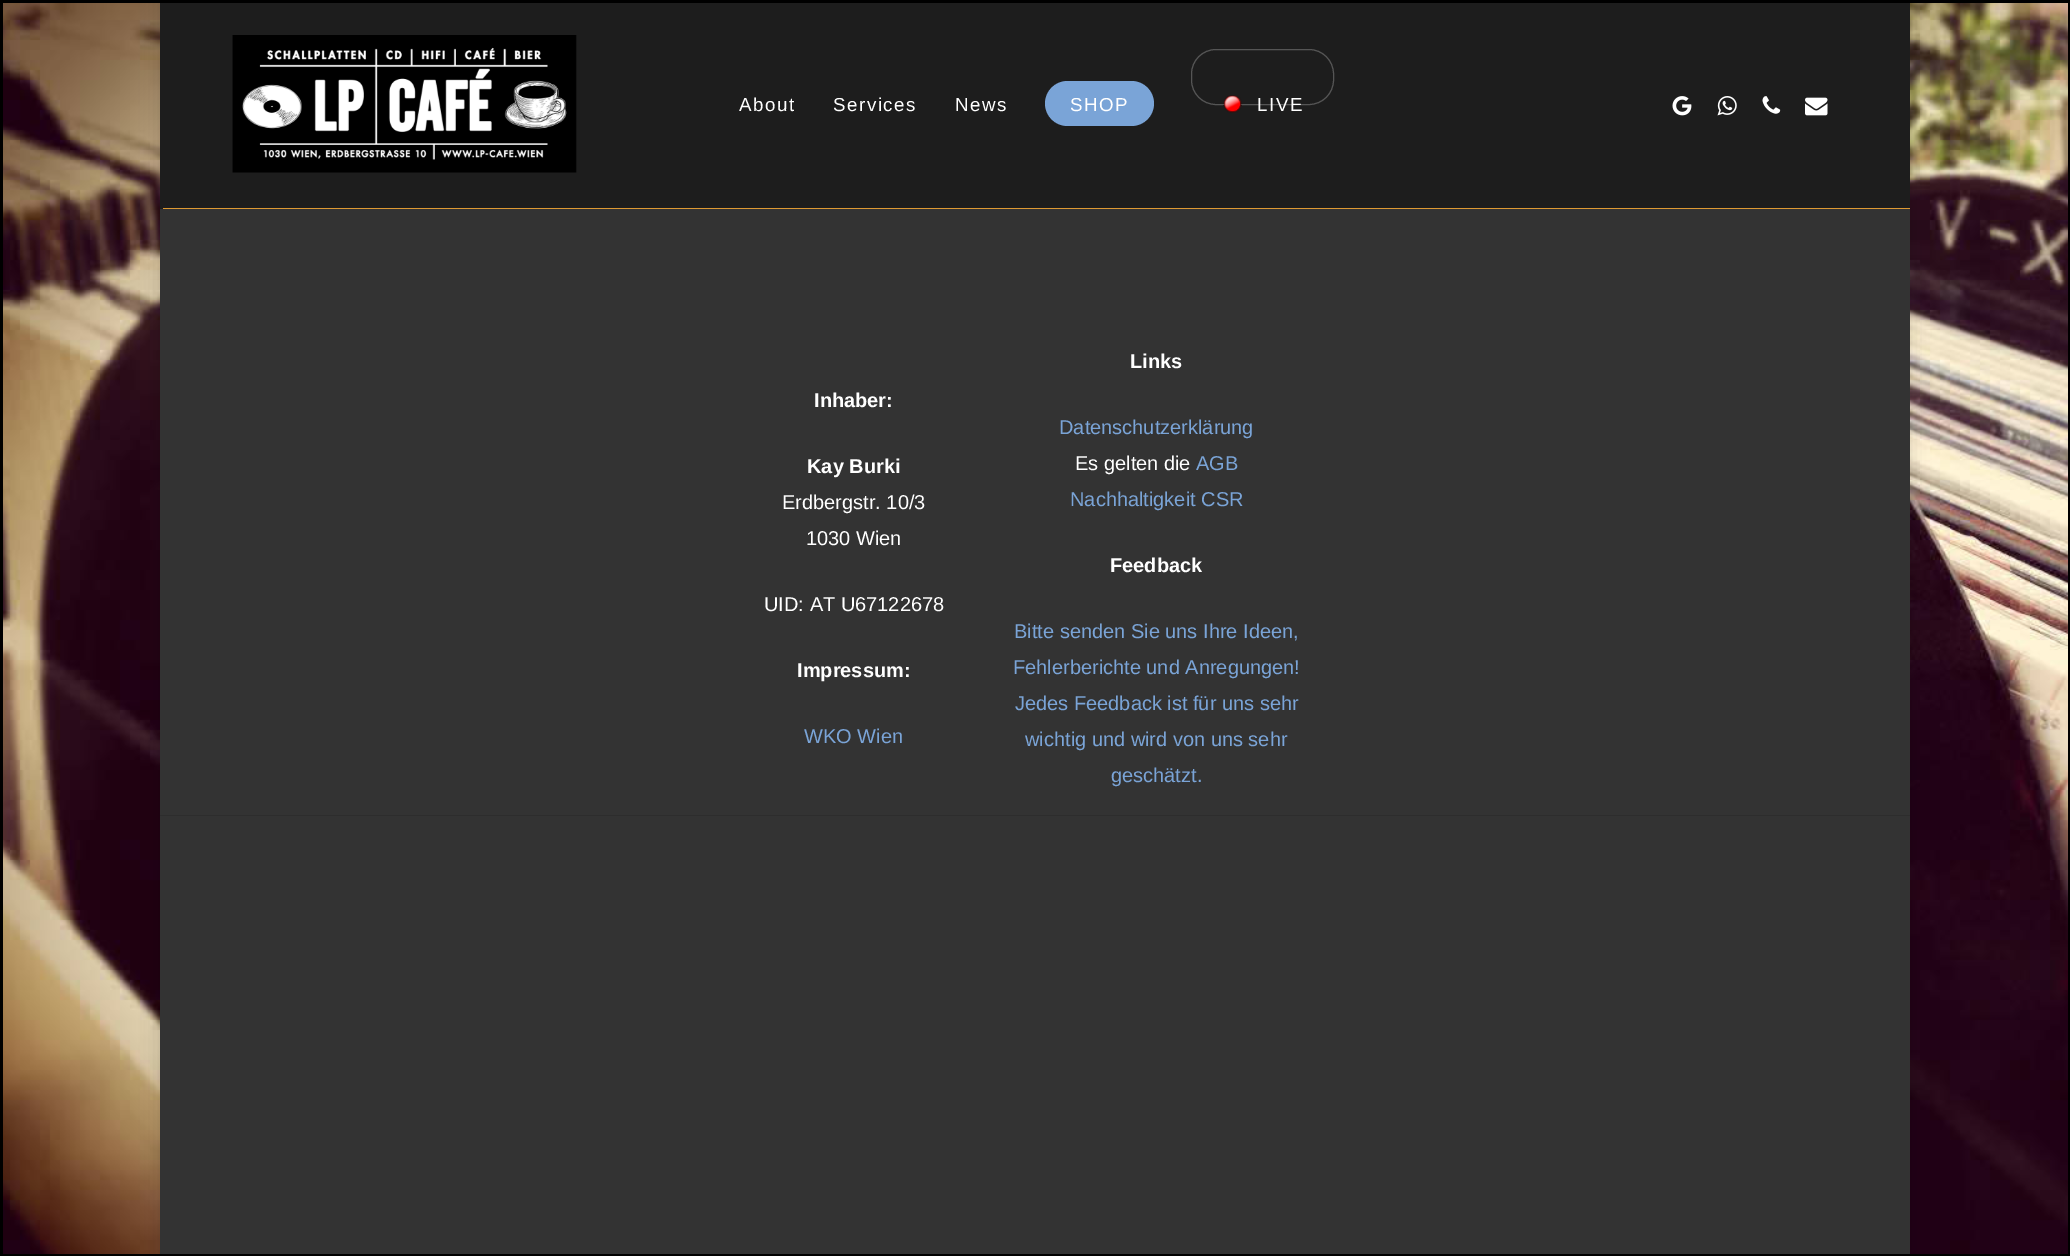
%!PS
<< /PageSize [2070 1256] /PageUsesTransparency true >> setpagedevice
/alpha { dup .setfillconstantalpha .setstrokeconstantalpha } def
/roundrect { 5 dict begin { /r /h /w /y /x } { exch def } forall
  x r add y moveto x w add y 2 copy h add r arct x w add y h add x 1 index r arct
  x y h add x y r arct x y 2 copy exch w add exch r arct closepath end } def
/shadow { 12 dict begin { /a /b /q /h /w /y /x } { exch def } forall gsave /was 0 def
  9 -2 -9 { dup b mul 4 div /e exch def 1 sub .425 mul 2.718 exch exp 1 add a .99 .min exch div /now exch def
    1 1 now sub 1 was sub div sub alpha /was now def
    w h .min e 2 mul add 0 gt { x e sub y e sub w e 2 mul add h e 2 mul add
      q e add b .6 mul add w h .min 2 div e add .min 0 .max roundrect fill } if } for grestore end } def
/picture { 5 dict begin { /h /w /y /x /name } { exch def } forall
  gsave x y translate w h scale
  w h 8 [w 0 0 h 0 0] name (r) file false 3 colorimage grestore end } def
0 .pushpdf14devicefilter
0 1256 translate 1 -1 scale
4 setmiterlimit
1 setgray
0 0 2070 1256 rectfill
(img1.rgb) 3 3 2065 1251 picture
0 setgray
160 -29 1750 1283 0 9.5 0.15 shadow
0 0 2070 3 rectfill
2068 0 2 1256 rectfill
0 1254 2070 2 rectfill
0 0 3 1256 rectfill
0.2 setgray
160 3 1750 1251 rectfill
0.44 alpha
0 setgray
160 3 1750 206 rectfill
1 alpha
0.867 0.6 0.2 setrgbcolor
163 208 1747 1 rectfill
(img2.rgb) 232 35 345 138 picture
/LiberationSans-Regular [18.75 0 0 -18.75 0 0] selectfont
1 setgray
739 111 moveto 1.5 0 (About) ashow
833 111 moveto 1.5 0 (Services) ashow
955 111 moveto 1.5 0 (News) ashow
0.478 0.643 0.843 setrgbcolor
1045 81 109 45 22.5 roundrect fill
1 setgray
1070 111 moveto 1.5 0 (SHOP) ashow
0.333 setgray
1191.5 49.5 142 55 24.5 roundrect stroke
(img3.rgb) 1223 95 19 18 picture
1 setgray
1257 111 moveto 1.5 0 (LIVE) ashow
(img4.rgb) 1672 96 20 20 picture
(img5.rgb) 1717 96 20 20 picture
(img6.rgb) 1762 96 19 18 picture
(img7.rgb) 1805 97 23 19 picture
/LiberationSans-Bold [20 0 0 -20 0 0] selectfont
814 407 moveto (Inhaber:) show
807 473 moveto (Kay Burki) show
/LiberationSans-Regular [20 0 0 -20 0 0] selectfont
782 509 moveto (Erdbergstr. 10/3) show
806 545 moveto (1030 Wien) show
764 611 moveto (UID: AT U67122678) show
/LiberationSans-Bold [20 0 0 -20 0 0] selectfont
797 677 moveto (Impressum:) show
/LiberationSans-Regular [20 0 0 -20 0 0] selectfont
0.478 0.643 0.843 setrgbcolor
804 743 moveto (WKO Wien) show
/LiberationSans-Bold [20 0 0 -20 0 0] selectfont
1 setgray
1130 368 moveto (Links) show
/LiberationSans-Regular [20 0 0 -20 0 0] selectfont
0.478 0.643 0.843 setrgbcolor
1059 434 moveto (Datenschutzerklärung) show
1 setgray
1075 470 moveto (Es gelten die) show
0.478 0.643 0.843 setrgbcolor
1196 470 moveto (AGB) show
1070 506 moveto (Nachhaltigkeit CSR) show
/LiberationSans-Bold [20 0 0 -20 0 0] selectfont
1 setgray
1110 572 moveto (Feedback) show
/LiberationSans-Regular [20 0 0 -20 0 0] selectfont
0.478 0.643 0.843 setrgbcolor
1014 638 moveto (Bitte senden Sie uns Ihre Ideen,) show
1013 674 moveto (Fehlerberichte und Anregungen!) show
1015 710 moveto (Jedes Feedback ist für uns sehr) show
1025 746 moveto (wichtig und wird von uns sehr) show
1111 782 moveto (geschätzt.) show
0.176 setgray
160 815 1750 1 rectfill
.poppdf14devicefilter showpage
